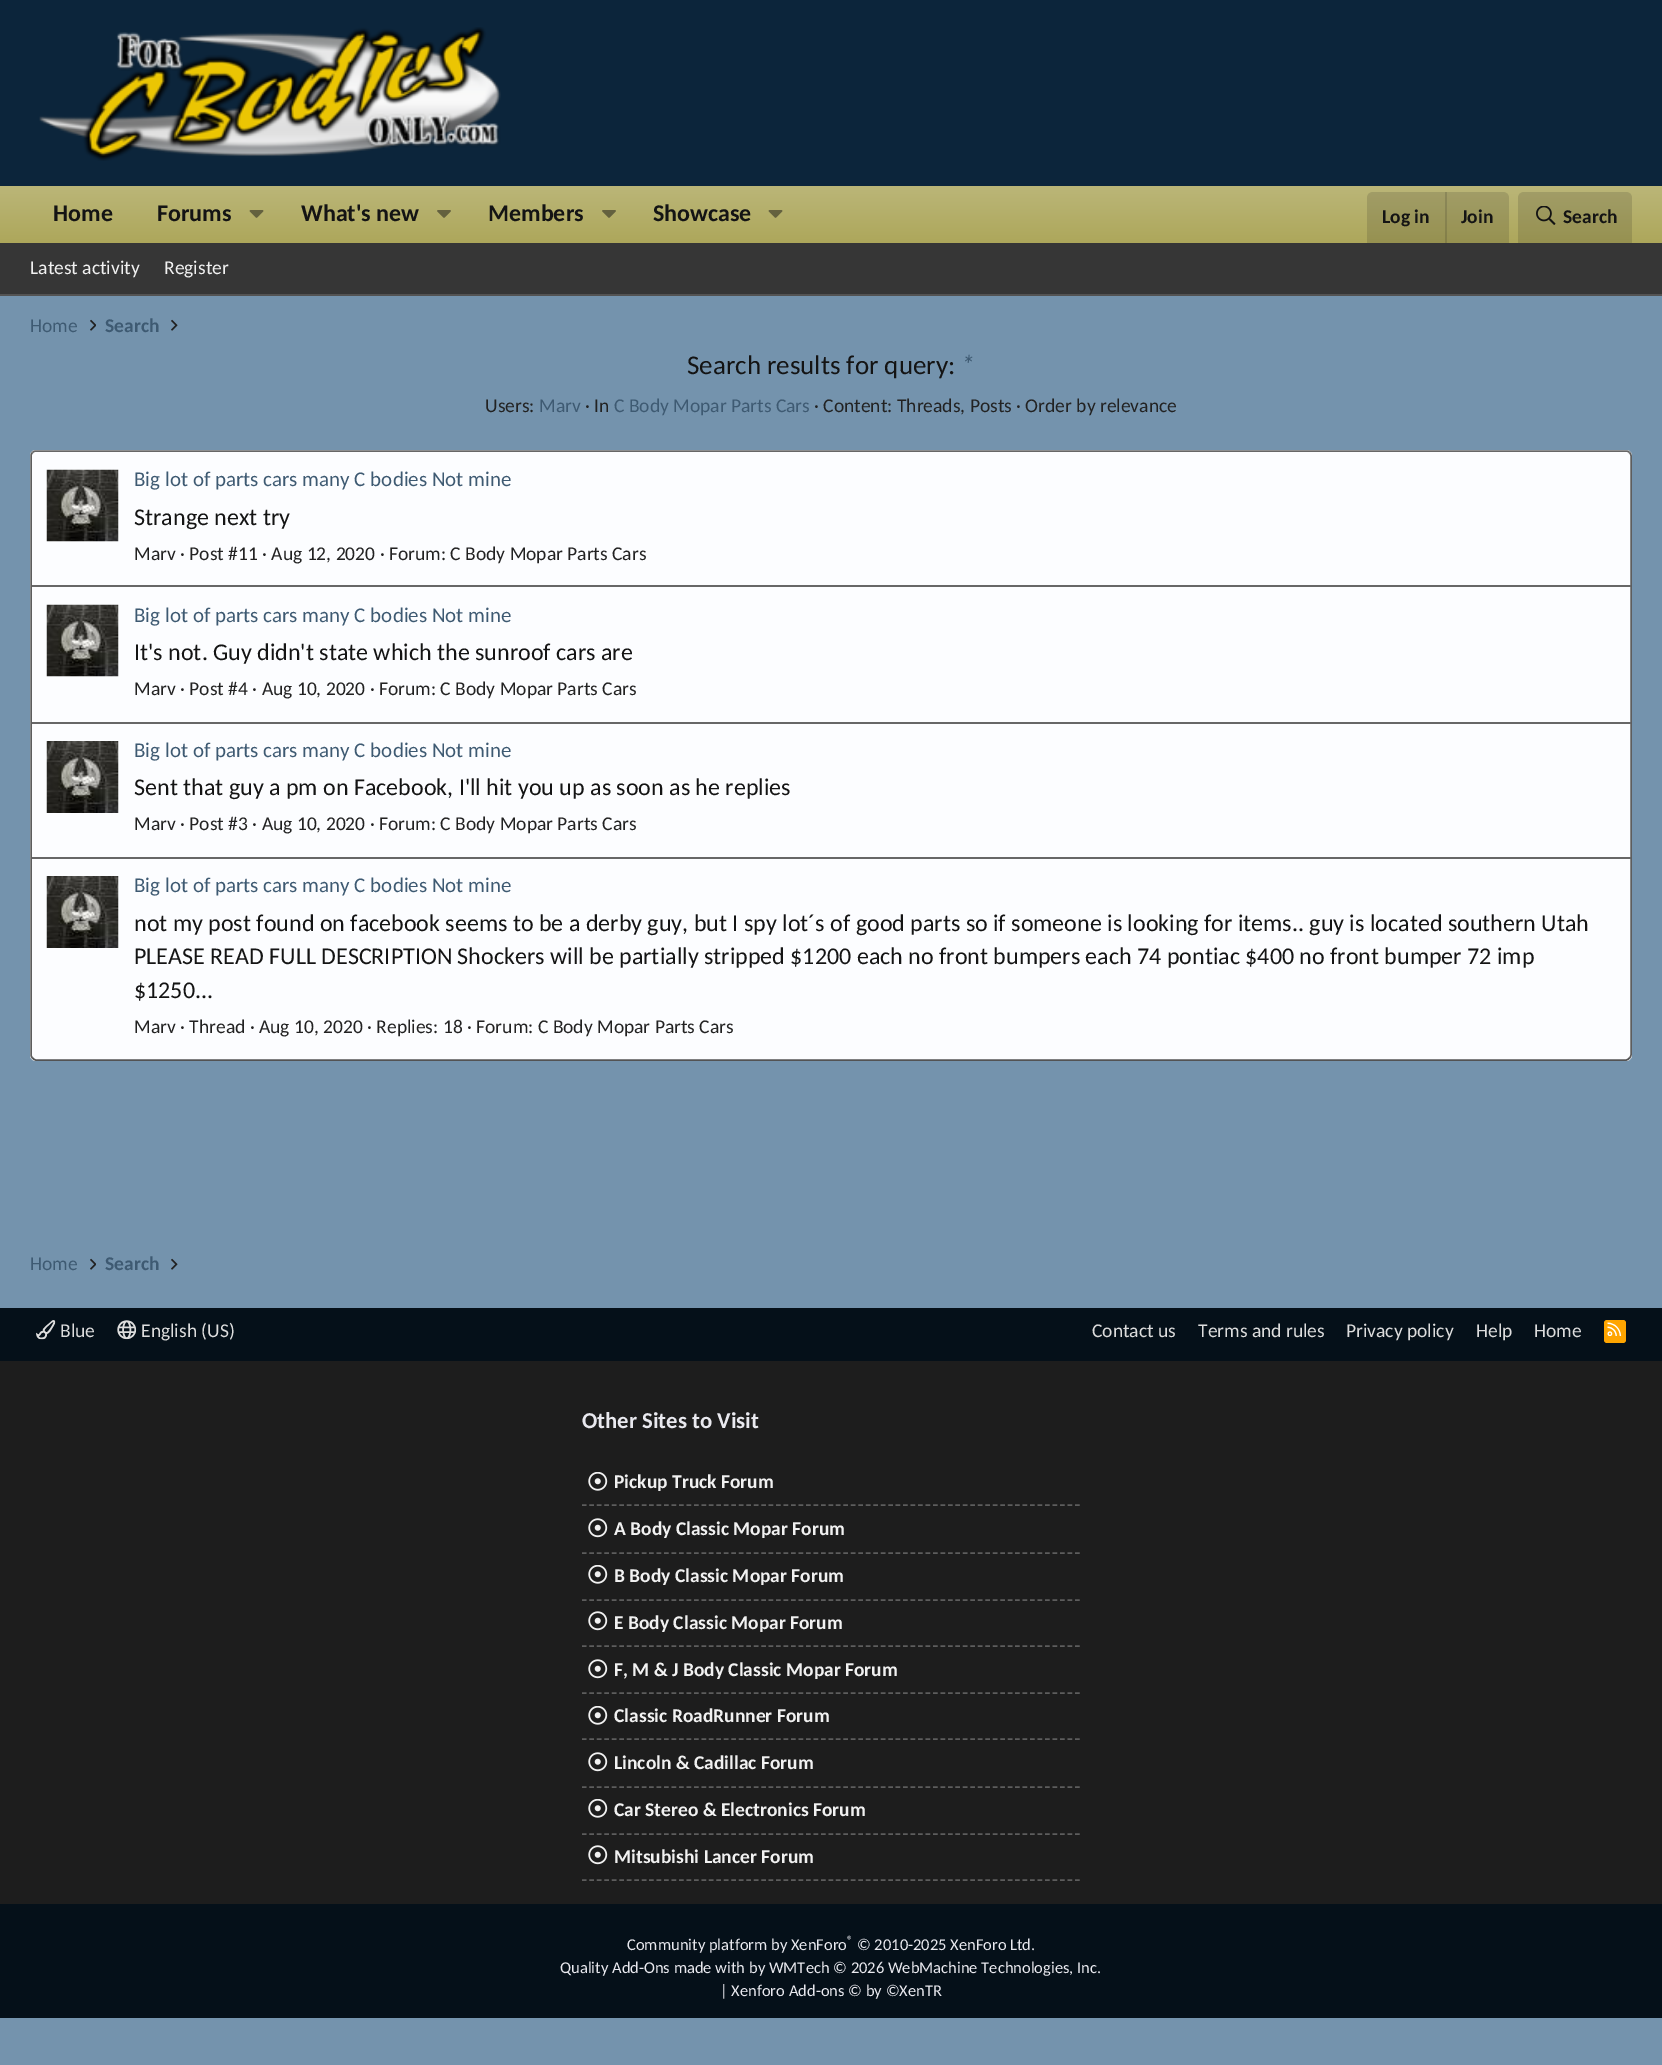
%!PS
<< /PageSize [1662 2065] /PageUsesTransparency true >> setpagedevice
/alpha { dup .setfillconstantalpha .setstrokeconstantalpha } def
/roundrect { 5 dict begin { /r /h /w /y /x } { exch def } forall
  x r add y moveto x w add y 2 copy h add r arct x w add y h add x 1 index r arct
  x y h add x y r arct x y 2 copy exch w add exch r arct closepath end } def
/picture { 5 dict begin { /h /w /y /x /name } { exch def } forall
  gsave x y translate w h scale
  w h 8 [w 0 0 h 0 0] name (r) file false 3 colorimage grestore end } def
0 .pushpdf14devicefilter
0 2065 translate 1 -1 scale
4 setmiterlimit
0.455 0.576 0.678 setrgbcolor
0 0 1662 2065 rectfill
0.047 0.145 0.231 setrgbcolor
0 0 1662 186 rectfill
(img1.rgb) 39 27 462 134 picture
gsave newpath 0 186 moveto 1662 186 lineto 1662 243 lineto 0 243 lineto closepath clip newpath
<< /ShadingType 2 /ColorSpace /DeviceRGB /Coords [831 186 831 243] /Extend [true true] /Function << /FunctionType 2 /Domain [0 1] /C0 [0.733 0.714 0.471] /C1 [0.678 0.655 0.357] /N 1 >> >> shfill grestore
/Carlito-Bold [24 0 0 -24 0 0] selectfont
0.078 setgray
53 221 moveto (Home) show
157 221 moveto (Forums) show
(img2.rgb) 249 210 15 8 picture
301 221 moveto (What's new) show
(img3.rgb) 437 210 14 8 picture
488 221 moveto (Members) show
(img3.rgb) 602 210 14 8 picture
653 221 moveto (Showcase) show
(img2.rgb) 768 210 15 8 picture
0.15 alpha
newpath 1373 192 moveto 1503 192 lineto 1506.5 192 1509 194.5 1509 198 curveto 1509 243 lineto 1367 243 lineto 1367 198 lineto 1367 194.5 1369.5 192 1373 192 curveto closepath fill
/Carlito-Bold [19.5 0 0 -19.5 0 0] selectfont
1 alpha
1382 223 moveto (Log in) show
0.15 alpha
1445 192 2 51 rectfill
1 alpha
1461 223 moveto (Join) show
0.15 alpha
newpath 1524 192 moveto 1626 192 lineto 1629.5 192 1632 194.5 1632 198 curveto 1632 243 lineto 1518 243 lineto 1518 198 lineto 1518 194.5 1520.5 192 1524 192 curveto closepath fill
1 alpha
(img4.rgb) 1536 206 20 19 picture
1563 223 moveto (Search) show
0.212 setgray
0 243 1662 51 rectfill
0.325 setgray
0 294 1662 2 rectfill
/Carlito-Regular [19.5 0 0 -19.5 0 0] selectfont
0.945 setgray
30 274 moveto (Latest activity) show
164 274 moveto (Register) show
0.243 0.353 0.447 setrgbcolor
30 332 moveto (Home) show
(img5.rgb) 90 319 6 12 picture
/Carlito-Bold [19.5 0 0 -19.5 0 0] selectfont
105 332 moveto (Search) show
(img6.rgb) 171 319 7 12 picture
/Carlito-Regular [27 0 0 -27 0 0] selectfont
0.078 setgray
687 374 moveto (Search results for query:) show
/Carlito-Italic [27 0 0 -27 0 0] selectfont
0.243 0.353 0.447 setrgbcolor
961 374 moveto (*) show
/Carlito-Regular [19.5 0 0 -19.5 0 0] selectfont
0.133 setgray
485 412 moveto (Users:) show
0.243 0.353 0.447 setrgbcolor
539 412 moveto (Marv) show
0.133 setgray
585 412 moveto (· In) show
0.243 0.353 0.447 setrgbcolor
614 412 moveto (C Body Mopar Parts Cars) show
0.133 setgray
814 412 moveto (· Content: Threads, Posts · Order by relevance) show
0.988 0.992 1 setrgbcolor
30 450 1602 611 6 roundrect fill
0.404 setgray
1.5 setlinewidth
newpath 32.5 452.5 moveto 33.5 451.5 34.5 451 36 451 curveto 1626 451 lineto 1627.5 451 1628.5 451.5 1629.5 452.5 curveto stroke
0.365 setgray
newpath 1629.5 452.5 moveto 1630.5 453.5 1631 454.5 1631 456 curveto 1631 1054.5 lineto 1631 1056 1630.5 1057 1629.5 1058 curveto stroke
0.325 setgray
newpath 1629.5 1058 moveto 1628.5 1059 1627.5 1060 1626 1060 curveto 36 1060 lineto 34.5 1060 33.5 1059 32.5 1058 curveto stroke
0.365 setgray
newpath 32.5 1058 moveto 31.5 1057 31 1056 31 1054.5 curveto 31 456 lineto 31 454.5 31.5 453.5 32.5 452.5 curveto stroke
(img7.rgb) 46 469 73 73 picture
/Carlito-Regular [21 0 0 -21 0 0] selectfont
0.243 0.353 0.447 setrgbcolor
134 486 moveto (Big lot of parts cars many C bodies Not mine) show
/Carlito-Regular [24 0 0 -24 0 0] selectfont
0.078 setgray
134 525 moveto (Strange next try) show
/Carlito-Regular [19.5 0 0 -19.5 0 0] selectfont
0.133 setgray
134 560 moveto (Marv · Post #11 · Aug 12, 2020 · Forum: C Body Mopar Parts Cars) show
0.404 setgray
32 585 1599 2 rectfill
(img7.rgb) 46 604 73 73 picture
/Carlito-Regular [21 0 0 -21 0 0] selectfont
0.243 0.353 0.447 setrgbcolor
134 622 moveto (Big lot of parts cars many C bodies Not mine) show
/Carlito-Regular [24 0 0 -24 0 0] selectfont
0.078 setgray
134 660 moveto (It's not. Guy didn't state which the sunroof cars are) show
/Carlito-Regular [19.5 0 0 -19.5 0 0] selectfont
0.133 setgray
134 695 moveto (Marv · Post #4 · Aug 10, 2020 · Forum: C Body Mopar Parts Cars) show
0.404 setgray
32 722 1599 2 rectfill
(img8.rgb) 46 741 73 72 picture
/Carlito-Regular [21 0 0 -21 0 0] selectfont
0.243 0.353 0.447 setrgbcolor
134 757 moveto (Big lot of parts cars many C bodies Not mine) show
/Carlito-Regular [24 0 0 -24 0 0] selectfont
0.078 setgray
134 795 moveto (Sent that guy a pm on Facebook, I'll hit you up as soon as he replies) show
/Carlito-Regular [19.5 0 0 -19.5 0 0] selectfont
0.133 setgray
134 830 moveto (Marv · Post #3 · Aug 10, 2020 · Forum: C Body Mopar Parts Cars) show
0.404 setgray
32 857 1599 2 rectfill
(img8.rgb) 46 876 73 72 picture
/Carlito-Regular [21 0 0 -21 0 0] selectfont
0.243 0.353 0.447 setrgbcolor
134 892 moveto (Big lot of parts cars many C bodies Not mine) show
/Carlito-Regular [24 0 0 -24 0 0] selectfont
0.078 setgray
134 931 moveto (not my post found on facebook seems to be a derby guy, but I spy lot´s of good parts so if someone is looking for items.. guy is located southern Utah) show
134 964 moveto (PLEASE READ FULL DESCRIPTION Shockers will be partially stripped $1200 each no front bumpers each 74 pontiac $400 no front bumper 72 imp) show
134 998 moveto ($1250...) show
/Carlito-Regular [19.5 0 0 -19.5 0 0] selectfont
0.133 setgray
134 1033 moveto (Marv · Thread · Aug 10, 2020 · Replies: 18 · Forum: C Body Mopar Parts Cars) show
0.243 0.353 0.447 setrgbcolor
30 1270 moveto (Home) show
(img5.rgb) 90 1258 6 12 picture
/Carlito-Bold [19.5 0 0 -19.5 0 0] selectfont
105 1270 moveto (Search) show
(img6.rgb) 171 1258 7 12 picture
0.02 0.063 0.098 setrgbcolor
0 1308 1662 710 rectfill
(img9.rgb) 36 1320 20 20 picture
/Carlito-Regular [19.5 0 0 -19.5 0 0] selectfont
0.867 setgray
60 1337 moveto (Blue) show
(img10.rgb) 117 1320 20 20 picture
141 1337 moveto (English \(US\)) show
1092 1337 moveto (Contact us) show
1198 1337 moveto (Terms and rules) show
1346 1337 moveto (Privacy policy) show
1476 1337 moveto (Help) show
1534 1337 moveto (Home) show
1 0.647 0 setrgbcolor
1604 1320 22 23 3 roundrect fill
(img11.rgb) 1607 1322 15 14 picture
0.114 setgray
0 1361 1662 543 rectfill
/Carlito-Bold [22.75 0 0 -22.75 0 0] selectfont
0.914 0.914 0.937 setrgbcolor
582 1428 moveto (Other Sites to Visit) show
0.365 setgray
[4.5 2.97] 0 setdash
newpath 582 1505 moveto 1080 1505 lineto stroke
(img12.rgb) 588 1472 20 19 picture
/Carlito-Bold [19.5 0 0 -19.5 0 0] selectfont
0.945 setgray
614 1488 moveto (Pickup Truck Forum) show
0.365 setgray
newpath 582 1553 moveto 1080 1553 lineto stroke
(img13.rgb) 588 1518 20 20 picture
0.945 setgray
614 1535 moveto (A Body Classic Mopar Forum) show
0.365 setgray
newpath 582 1600 moveto 1080 1600 lineto stroke
(img12.rgb) 588 1565 20 19 picture
0.945 setgray
614 1582 moveto (B Body Classic Mopar Forum) show
0.365 setgray
newpath 582 1646 moveto 1080 1646 lineto stroke
(img13.rgb) 588 1611 20 20 picture
0.945 setgray
614 1629 moveto (E Body Classic Mopar Forum) show
0.365 setgray
newpath 582 1693 moveto 1080 1693 lineto stroke
(img13.rgb) 588 1659 20 20 picture
0.945 setgray
614 1676 moveto (F, M & J Body Classic Mopar Forum) show
0.365 setgray
newpath 582 1739 moveto 1080 1739 lineto stroke
(img12.rgb) 588 1706 20 19 picture
0.945 setgray
614 1722 moveto (Classic RoadRunner Forum) show
0.365 setgray
newpath 582 1787 moveto 1080 1787 lineto stroke
(img13.rgb) 588 1752 20 20 picture
0.945 setgray
614 1769 moveto (Lincoln & Cadillac Forum) show
0.365 setgray
newpath 582 1834 moveto 1080 1834 lineto stroke
(img12.rgb) 588 1799 20 19 picture
0.945 setgray
614 1816 moveto (Car Stereo & Electronics Forum) show
0.365 setgray
newpath 582 1880 moveto 1080 1880 lineto stroke
(img13.rgb) 588 1845 20 20 picture
0.945 setgray
614 1863 moveto (Mitsubishi Lancer Forum) show
/Carlito-Regular [12 0 0 -12 0 0] selectfont
0.914 0.914 0.937 setrgbcolor
847 1944 moveto (®) show
/Carlito-Regular [16.5 0 0 -16.5 0 0] selectfont
627 1950 moveto (Community platform by XenForo) show
857 1950 moveto (© 2010-2025 XenForo Ltd.) show
560 1973 moveto (Quality Add-Ons made with by WMTech © 2026 WebMachine Technologies, Inc.) show
720 1996 moveto (| Xenforo Add-ons © by ©XenTR) show
.poppdf14devicefilter showpage
